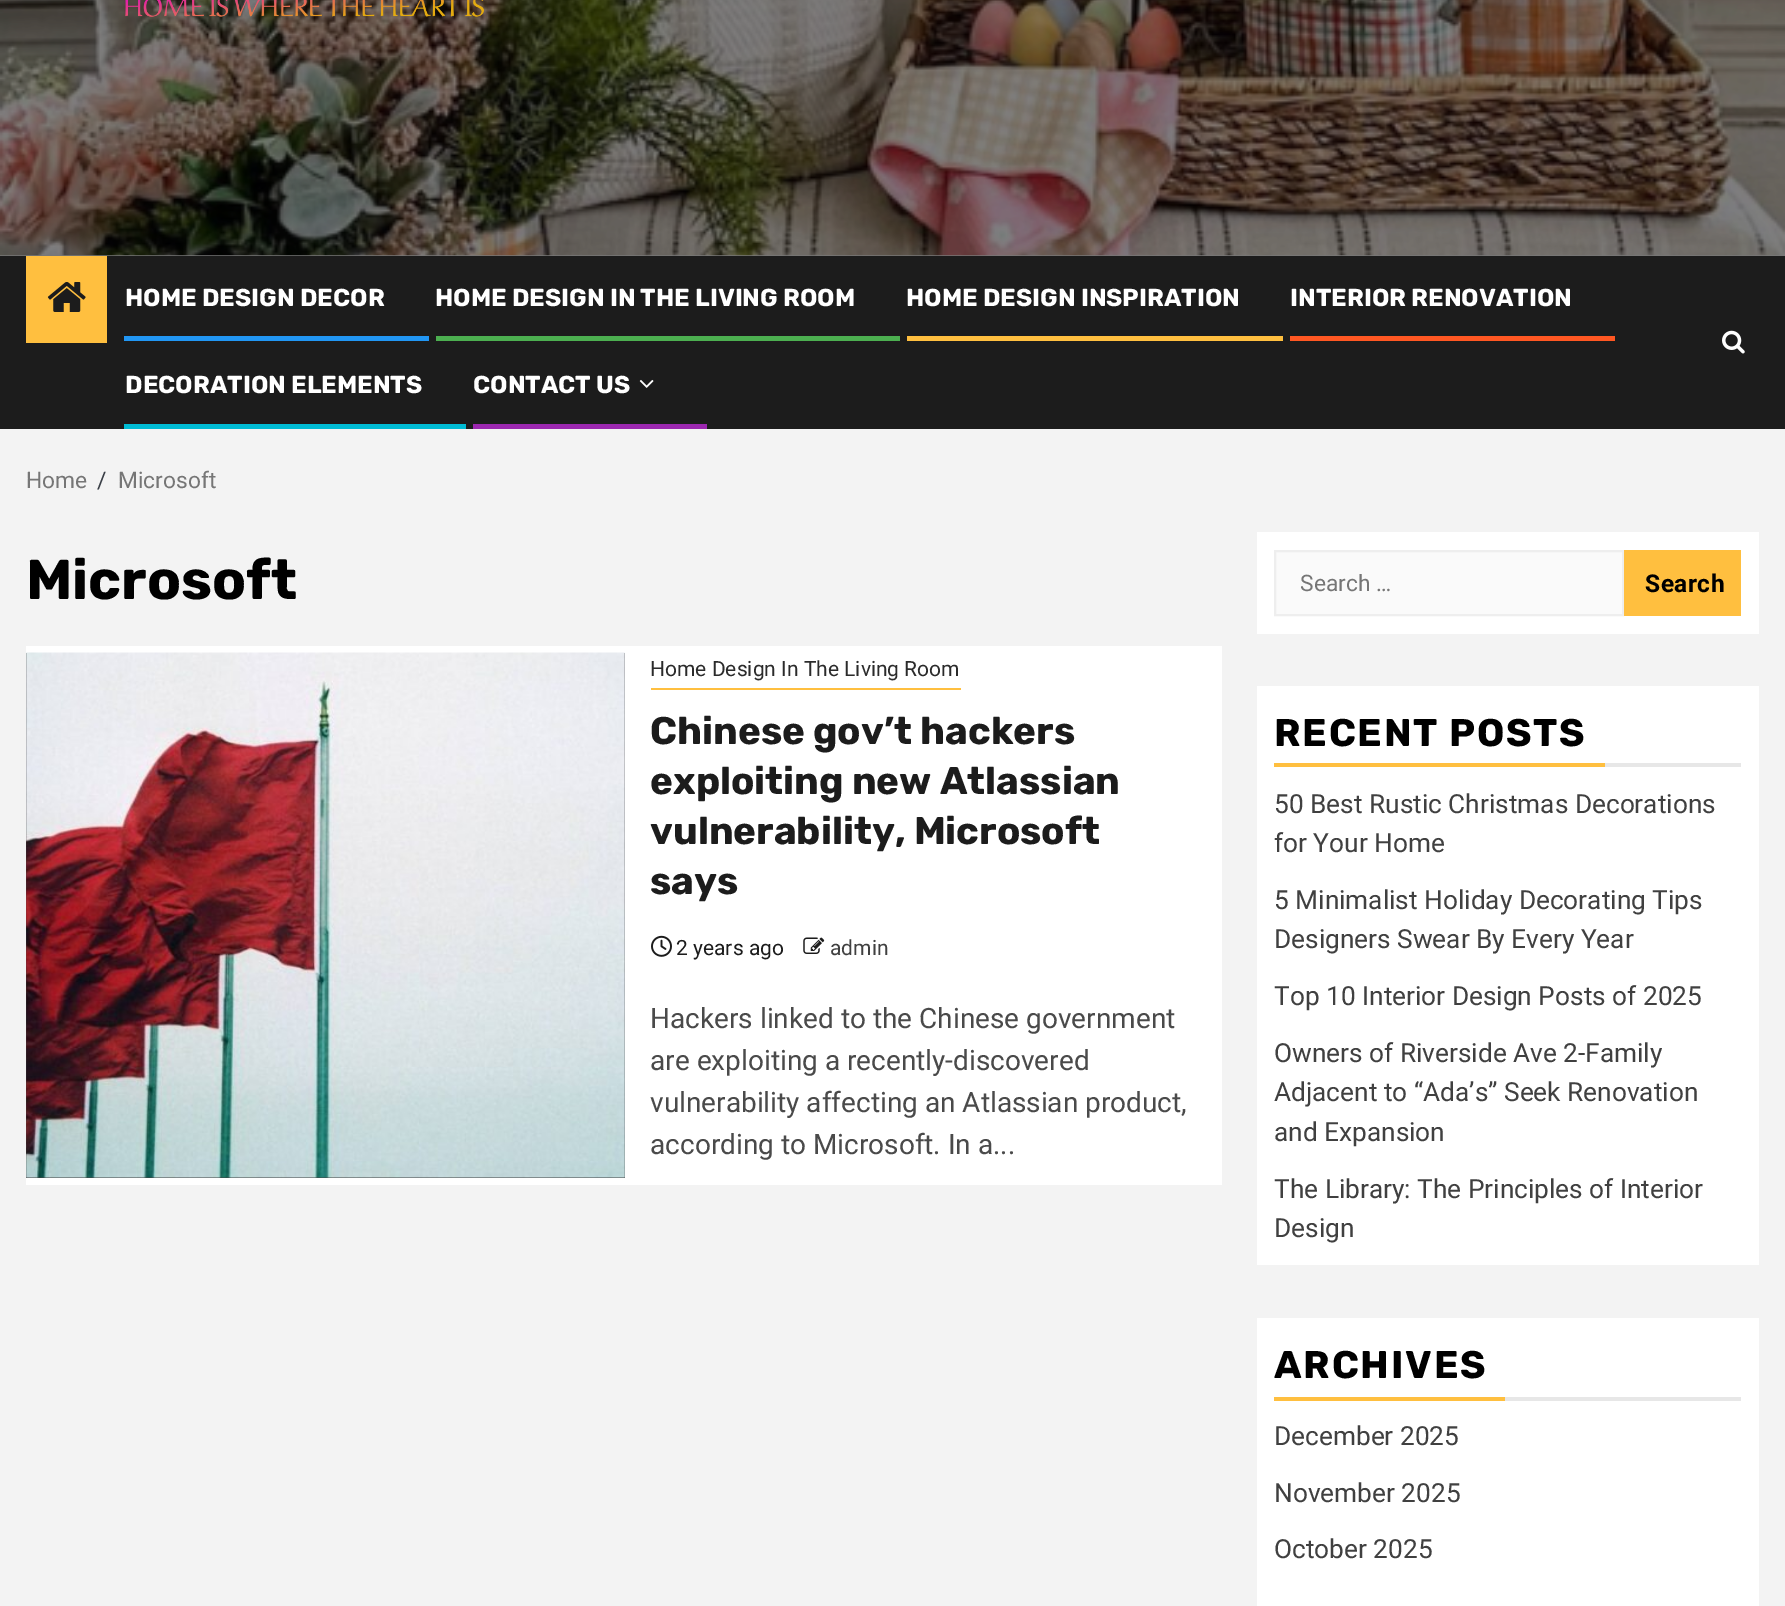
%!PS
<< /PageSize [1785 1606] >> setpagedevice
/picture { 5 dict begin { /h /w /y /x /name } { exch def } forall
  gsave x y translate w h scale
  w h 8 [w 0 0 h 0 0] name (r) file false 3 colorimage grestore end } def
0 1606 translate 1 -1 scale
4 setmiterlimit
0.953 setgray
0 0 1785 1606 rectfill
0.471 setgray
0 255 1785 1 rectfill
(img1.rgb) 0 0 1785 256 picture
(img2.rgb) 125 0 359 17 picture
0.11 setgray
0 256 1785 173 rectfill
1 0.749 0.247 setrgbcolor
26 256 81 87 rectfill
(img3.rgb) 47 282 39 30 picture
/Rubik-Bold [24.5 0 0 -24.5 0 0] selectfont
1 setgray
125 306 moveto (HOME DESIGN DECOR) show
0.129 0.588 0.953 setrgbcolor
124 336 305 5 rectfill
1 setgray
435 306 moveto (HOME DESIGN IN THE LIVING ROOM) show
0.298 0.686 0.314 setrgbcolor
436 336 464 5 rectfill
1 setgray
906 306 moveto (HOME DESIGN INSPIRATION) show
1 0.749 0.247 setrgbcolor
907 336 376 5 rectfill
1 setgray
1290 306 moveto (INTERIOR RENOVATION) show
1 0.341 0.133 setrgbcolor
1290 336 325 5 rectfill
1 setgray
125 393 moveto (DECORATION ELEMENTS) show
0 0.737 0.831 setrgbcolor
124 424 342 5 rectfill
1 setgray
473 393 moveto (CONTACT US) show
(img4.rgb) 639 379 15 9 picture
0.612 0.153 0.69 setrgbcolor
473 424 234 5 rectfill
(img5.rgb) 1722 330 23 24 picture
/Roboto-Regular [22.75 0 0 -22.75 0 0] selectfont
0.463 setgray
26 488 moveto (Home) show
0.224 0.243 0.275 setrgbcolor
97 488 moveto (/) show
0.463 setgray
118 488 moveto (Microsoft) show
/Rubik-Bold [56 0 0 -56 0 0] selectfont
0 setgray
26 599 moveto (Microsoft) show
1 setgray
26 646 1196 539 rectfill
0.251 setgray
26 653 599 525 rectfill
(img6.rgb) 26 652 599 526 picture
1 0.749 0.247 setrgbcolor
651 688 310 2 rectfill
/Roboto-Regular [21 0 0 -21 0 0] selectfont
0.169 setgray
650 676 moveto (Home Design In The Living Room) show
/Rubik-Bold [38.5 0 0 -38.5 0 0] selectfont
0.11 setgray
650 744 moveto (Chinese gov’t hackers) show
650 794 moveto (exploiting new Atlassian) show
650 844 moveto (vulnerability, Microsoft) show
650 894 moveto (says) show
(img7.rgb) 651 935 21 22 picture
/Roboto-Regular [21 0 0 -21 0 0] selectfont
676 955 moveto (2 years ago) show
(img8.rgb) 803 937 22 17 picture
0.251 setgray
830 955 moveto (admin) show
/Roboto-Regular [28 0 0 -28 0 0] selectfont
0.29 setgray
650 1028 moveto (Hackers linked to the Chinese government) show
650 1070 moveto (are exploiting a recently-discovered) show
650 1112 moveto (vulnerability affecting an Atlassian product,) show
650 1154 moveto (according to Microsoft. In a...) show
1 setgray
1257 532 502 102 rectfill
0.98 setgray
newpath 1275 551 moveto 1623 551 lineto 1623 615 lineto 1275 615 lineto closepath gsave fill grestore
0.933 setgray
2 setlinewidth
stroke
/Roboto-Regular [22.75 0 0 -22.75 0 0] selectfont
0.463 setgray
1300 591 moveto (Search …) show
1 0.749 0.247 setrgbcolor
1624 550 117 66 rectfill
/Roboto-Bold [24.5 0 0 -24.5 0 0] selectfont
0 setgray
1645 592 moveto 0.5 0 (Search) ashow
1 setgray
1257 686 502 579 rectfill
1 0.749 0.247 setrgbcolor
1274 763 331 4 rectfill
/Rubik-Bold [38.5 0 0 -38.5 0 0] selectfont
0 setgray
1274 746 moveto 1.75 0 (RECENT POSTS) ashow
0.906 setgray
1605 763 136 4 rectfill
/Roboto-Regular [26.25 0 0 -26.25 0 0] selectfont
0.251 setgray
1274 813 moveto (50 Best Rustic Christmas Decorations) show
1274 852 moveto (for Your Home) show
1274 909 moveto (5 Minimalist Holiday Decorating Tips) show
1274 948 moveto (Designers Swear By Every Year) show
1274 1005 moveto (Top 10 Interior Design Posts of 2025) show
1274 1062 moveto (Owners of Riverside Ave 2-Family) show
1274 1101 moveto (Adjacent to “Ada’s” Seek Renovation) show
1274 1141 moveto (and Expansion) show
1274 1198 moveto (The Library: The Principles of Interior) show
1274 1237 moveto (Design) show
1 setgray
1257 1318 502 288 rectfill
1 0.749 0.247 setrgbcolor
1274 1397 231 4 rectfill
/Rubik-Bold [38.5 0 0 -38.5 0 0] selectfont
0 setgray
1274 1378 moveto 1.75 0 (ARCHIVES) ashow
0.906 setgray
1505 1397 236 4 rectfill
/Roboto-Regular [26.25 0 0 -26.25 0 0] selectfont
0.251 setgray
1274 1445 moveto (December 2025) show
1274 1502 moveto (November 2025) show
1274 1558 moveto (October 2025) show
showpage
